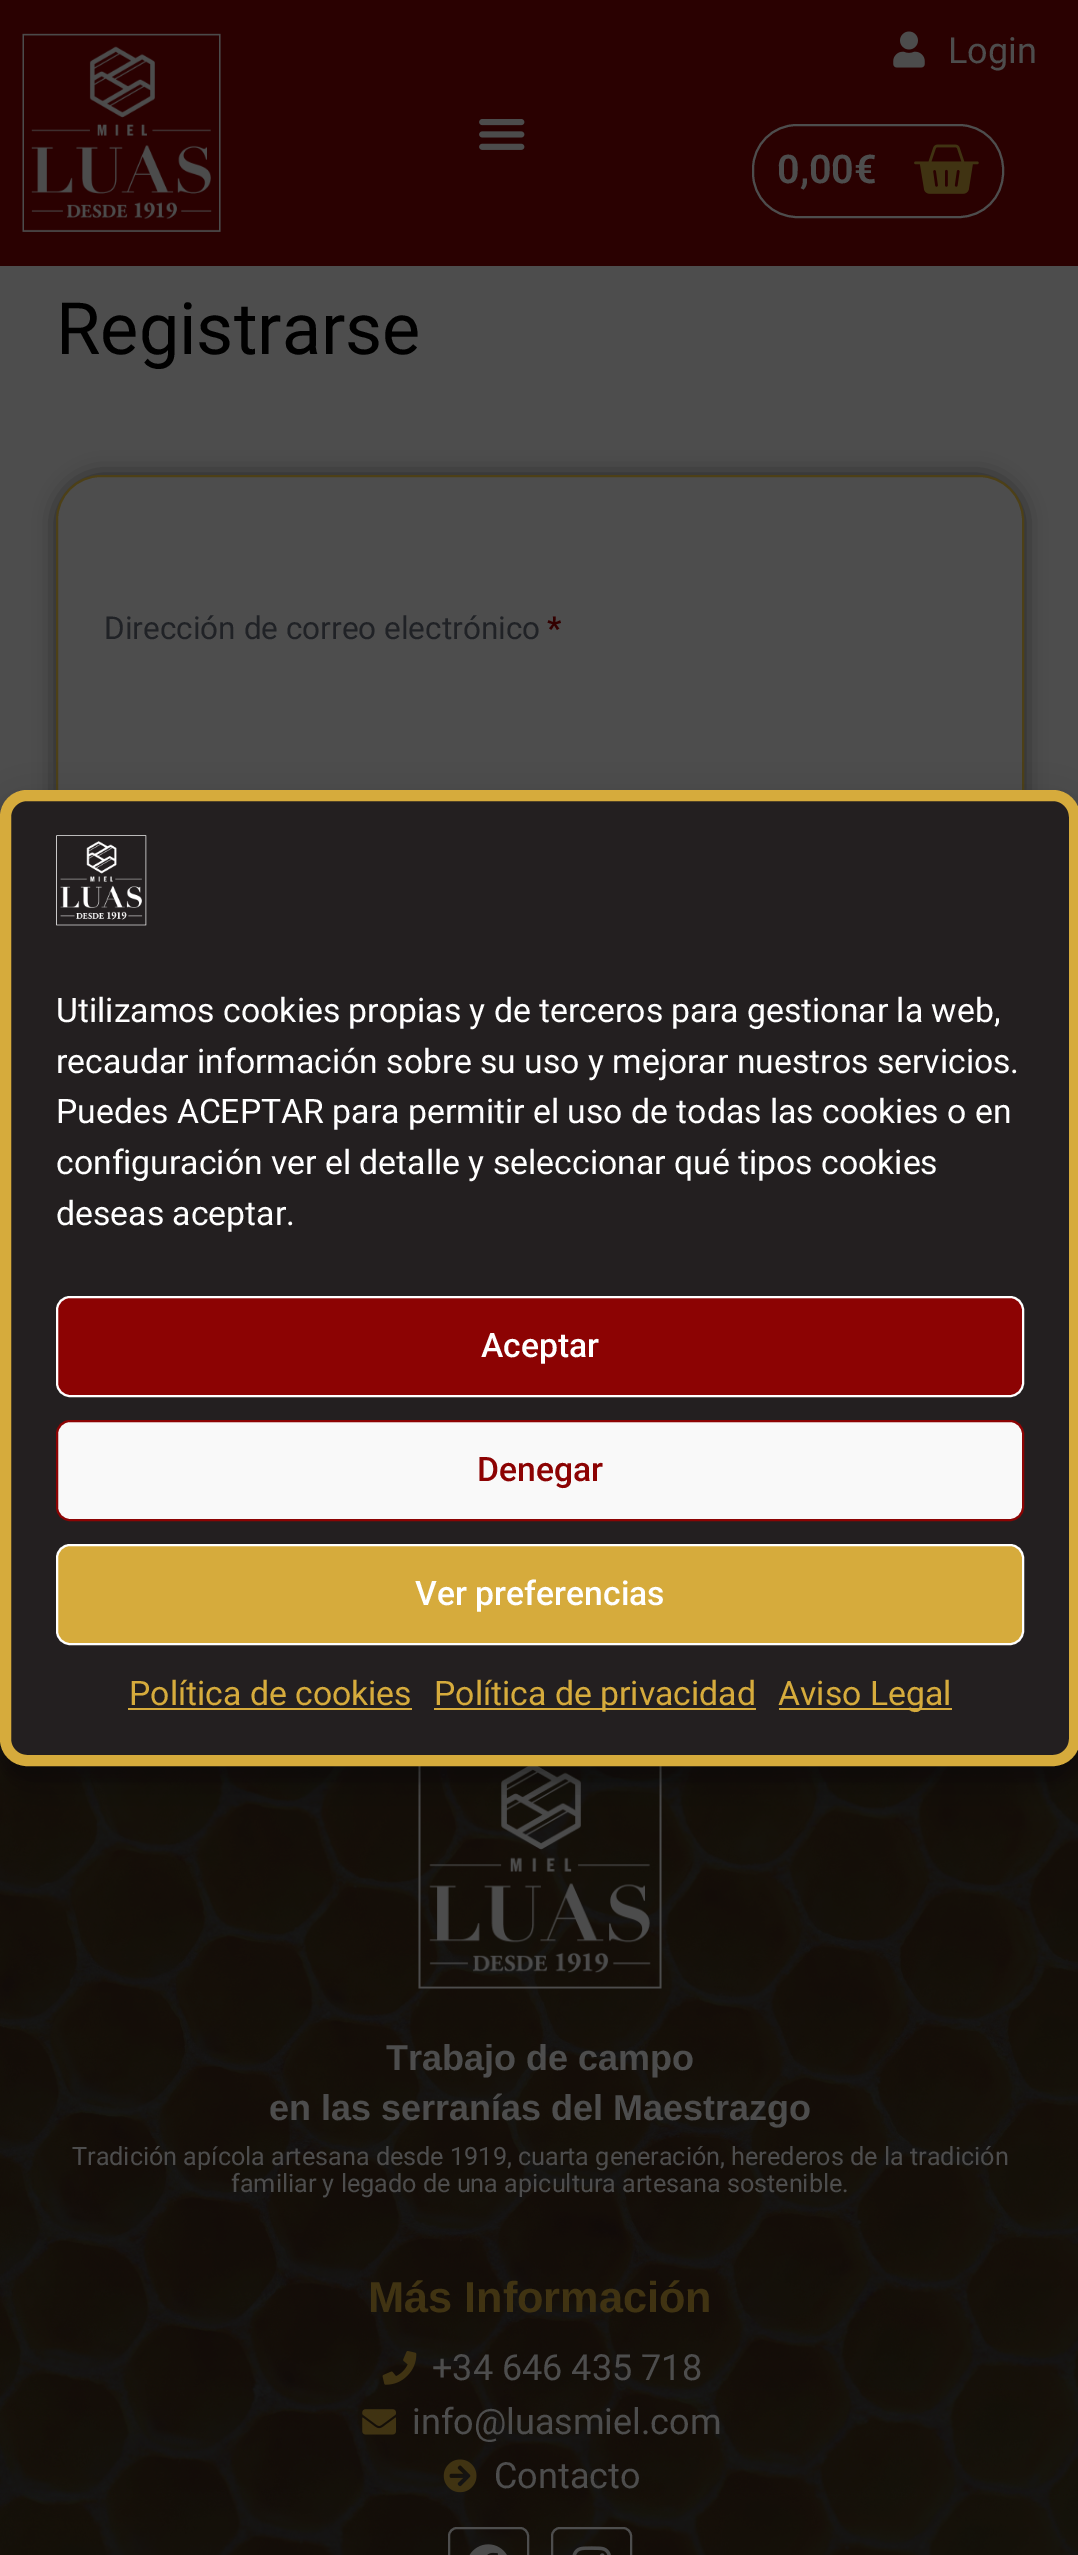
%!PS
<< /PageSize [1078 2555] /PageUsesTransparency true >> setpagedevice
/alpha { dup .setfillconstantalpha .setstrokeconstantalpha } def
/roundrect { 5 dict begin { /r /h /w /y /x } { exch def } forall
  x r add y moveto x w add y 2 copy h add r arct x w add y h add x 1 index r arct
  x y h add x y r arct x y 2 copy exch w add exch r arct closepath end } def
/shadow { 12 dict begin { /a /b /q /h /w /y /x } { exch def } forall gsave /was 0 def
  9 -2 -9 { dup b mul 4 div /e exch def 1 sub .425 mul 2.718 exch exp 1 add a .99 .min exch div /now exch def
    1 1 now sub 1 was sub div sub alpha /was now def
    w h .min e 2 mul add 0 gt { x e sub y e sub w e 2 mul add h e 2 mul add
      q e add b .6 mul add w h .min 2 div e add .min 0 .max roundrect fill } if } for grestore end } def
/picture { 5 dict begin { /h /w /y /x /name } { exch def } forall
  gsave x y translate w h scale
  w h 8 [w 0 0 h 0 0] name (r) file false 3 colorimage grestore end } def
0 .pushpdf14devicefilter
0 2555 translate 1 -1 scale
4 setmiterlimit
0.302 setgray
0 0 1078 2555 rectfill
0.165 0.004 0.004 setrgbcolor
0 0 1078 266 rectfill
(img1.rgb) 22 33 199 199 picture
(img2.rgb) 479 119 46 31 picture
(img3.rgb) 893 31 32 37 picture
/Roboto-Regular [36 0 0 -36 0 0] selectfont
0.302 setgray
948 63 moveto (Login) show
2 setlinewidth
753 125 250 92 44 roundrect stroke
/Roboto-SemiBold [39.5 0 0 -39.5 0 0] selectfont
777 183 moveto (0,00€) show
(img4.rgb) 914 144 65 50 picture
/Roboto-Regular [72 0 0 -72 0 0] selectfont
0 setgray
56 354 moveto (Registrarse) show
56 475 968 889 45 11 0.5 shadow
0.302 setgray
57 476 966 887 44 roundrect gsave fill grestore
0.302 0.251 0.09 setrgbcolor
stroke
/Roboto-Regular [31.5 0 0 -31.5 0 0] selectfont
0.125 0.133 0.149 setrgbcolor
104 639 moveto (Dirección de correo electrónico) show
/Roboto-Bold [31.5 0 0 -31.5 0 0] selectfont
0.2 0 0 setrgbcolor
547 639 moveto (*) show
0.043 0.035 0.039 setrgbcolor
0 1739 1078 816 rectfill
(img6.rgb) 0 1739 1078 816 picture
(img7.rgb) 418 1766 244 223 picture
0 setgray
0 803 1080 977 27 7 0.23 shadow
0 812 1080 977 27 22.5 0.19 shadow
0.137 0.122 0.125 setrgbcolor
5.5 795.5 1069 965 21.5 roundrect gsave fill grestore
0.839 0.671 0.235 setrgbcolor
11 setlinewidth
stroke
(img5.rgb) 56 835 91 91 picture
/Roboto-Regular [33.75 0 0 -33.75 0 0] selectfont
1 setgray
56 1022 moveto (Utilizamos cookies propias y de terceros para gestionar la web,) show
56 1073 moveto (recaudar información sobre su uso y mejorar nuestros servicios.) show
56 1123 moveto (Puedes ACEPTAR para permitir el uso de todas las cookies o en) show
56 1174 moveto (configuración ver el detalle y seleccionar qué tipos cookies) show
56 1225 moveto (deseas aceptar.) show
0.549 0.012 0.012 setrgbcolor
57 1297 966 99 13 roundrect gsave fill grestore
1 setgray
2 setlinewidth
stroke
/Roboto-Medium [33.75 0 0 -33.75 0 0] selectfont
481 1357 moveto (Aceptar) show
0.976 setgray
57 1421 966 99 13 roundrect gsave fill grestore
0.549 0.012 0.012 setrgbcolor
stroke
477 1481 moveto (Denegar) show
0.839 0.671 0.235 setrgbcolor
57 1545 966 99 13 roundrect gsave fill grestore
1 setgray
stroke
415 1605 moveto (Ver preferencias) show
/Roboto-Regular [33.75 0 0 -33.75 0 0] selectfont
0.839 0.671 0.235 setrgbcolor
129 1705 moveto (Política de cookies) show
128 1708 284 2 rectfill
434 1708 322 2 rectfill
434 1705 moveto (Política de privacidad) show
779 1708 173 2 rectfill
778 1705 moveto (Aviso Legal) show
/LiberationSans-Bold [36 0 0 -36 0 0] selectfont
0.302 setgray
386 2070 moveto (Trabajo de campo) show
269 2120 moveto (en las serranías del Maestrazgo) show
/Roboto-Regular [25.2 0 0 -25.2 0 0] selectfont
72 2165 moveto (Tradición apícola artesana desde 1919, cuarta generación, herederos de la tradición) show
231 2192 moveto (familiar y legado de una apicultura artesana sostenible.) show
/LiberationSans-Bold [43.25 0 0 -43.25 0 0] selectfont
0.251 0.2 0.071 setrgbcolor
368 2312 moveto (Más Información) show
(img8.rgb) 382 2351 35 34 picture
/Roboto-Regular [36 0 0 -36 0 0] selectfont
0.302 setgray
432 2380 moveto (+34 646 435 718) show
(img9.rgb) 362 2409 34 26 picture
412 2434 moveto (info@luasmiel.com) show
(img10.rgb) 443 2459 34 34 picture
494 2488 moveto (Contacto) show
449 2528 79 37 8 roundrect stroke
(img11.rgb) 469 2544 38 11 picture
552 2528 79 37 8 roundrect stroke
(img12.rgb) 572 2546 39 9 picture
.poppdf14devicefilter showpage
